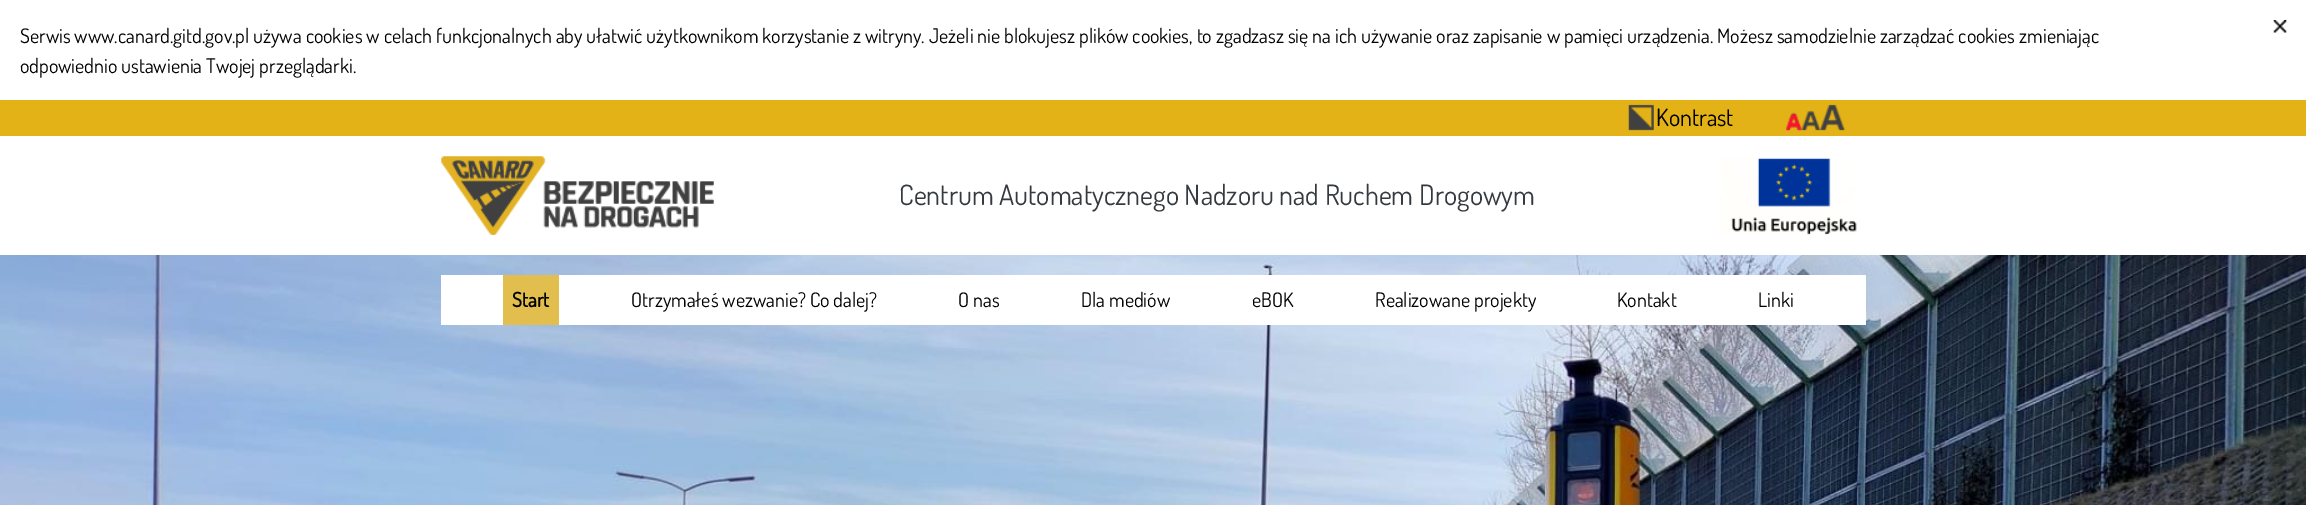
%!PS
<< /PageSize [2306 505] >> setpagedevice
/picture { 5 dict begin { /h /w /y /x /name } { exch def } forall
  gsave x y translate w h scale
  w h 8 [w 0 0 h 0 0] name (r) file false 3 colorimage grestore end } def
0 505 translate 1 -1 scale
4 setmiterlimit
1 setgray
0 0 2306 505 rectfill
/Dosis-Regular [20 0 0 -20 0 0] selectfont
0 setgray
20 43 moveto (Serwis www.canard.gitd.gov.pl używa cookies w celach funkcjonalnych aby ułatwić użytkownikom korzystanie z witryny. Jeżeli nie blokujesz plików cookies, to zgadzasz się na ich używanie oraz zapisanie w pamięci urządzenia. Możesz samodzielnie zarządzać cookies zmieniając) show
20 73 moveto (odpowiednio ustawienia Twojej przeglądarki.) show
(img1.rgb) 2273 20 14 13 picture
0.89 0.698 0.086 setrgbcolor
0 100 2306 36 rectfill
(img2.rgb) 1628 104 26 27 picture
/Dosis-Regular [24 0 0 -24 0 0] selectfont
0 setgray
1656 126 moveto (Kontrast) show
(img3.rgb) 1786 104 60 28 picture
(img4.rgb) 441 156 273 79 picture
/Dosis-Regular [28 0 0 -28 0 0] selectfont
0.204 0.227 0.251 setrgbcolor
899 205 moveto (Centrum Automatycznego Nadzoru nad Ruchem Drogowym) show
(img5.rgb) 1720 157 137 78 picture
(img6.rgb) 0 255 2306 250 picture
1 setgray
441 275 1425 50 rectfill
0.886 0.745 0.31 setrgbcolor
503 275 56 50 rectfill
/Dosis-Bold [20 0 0 -20 0 0] selectfont
0 setgray
512 307 moveto (Start) show
/Dosis-Regular [20 0 0 -20 0 0] selectfont
631 307 moveto (Otrzymałeś wezwanie? Co dalej?) show
958 307 moveto (O nas) show
1081 307 moveto (Dla mediów) show
1252 307 moveto (eBOK) show
1375 307 moveto (Realizowane projekty) show
1617 307 moveto (Kontakt) show
1758 307 moveto (Linki) show
showpage
